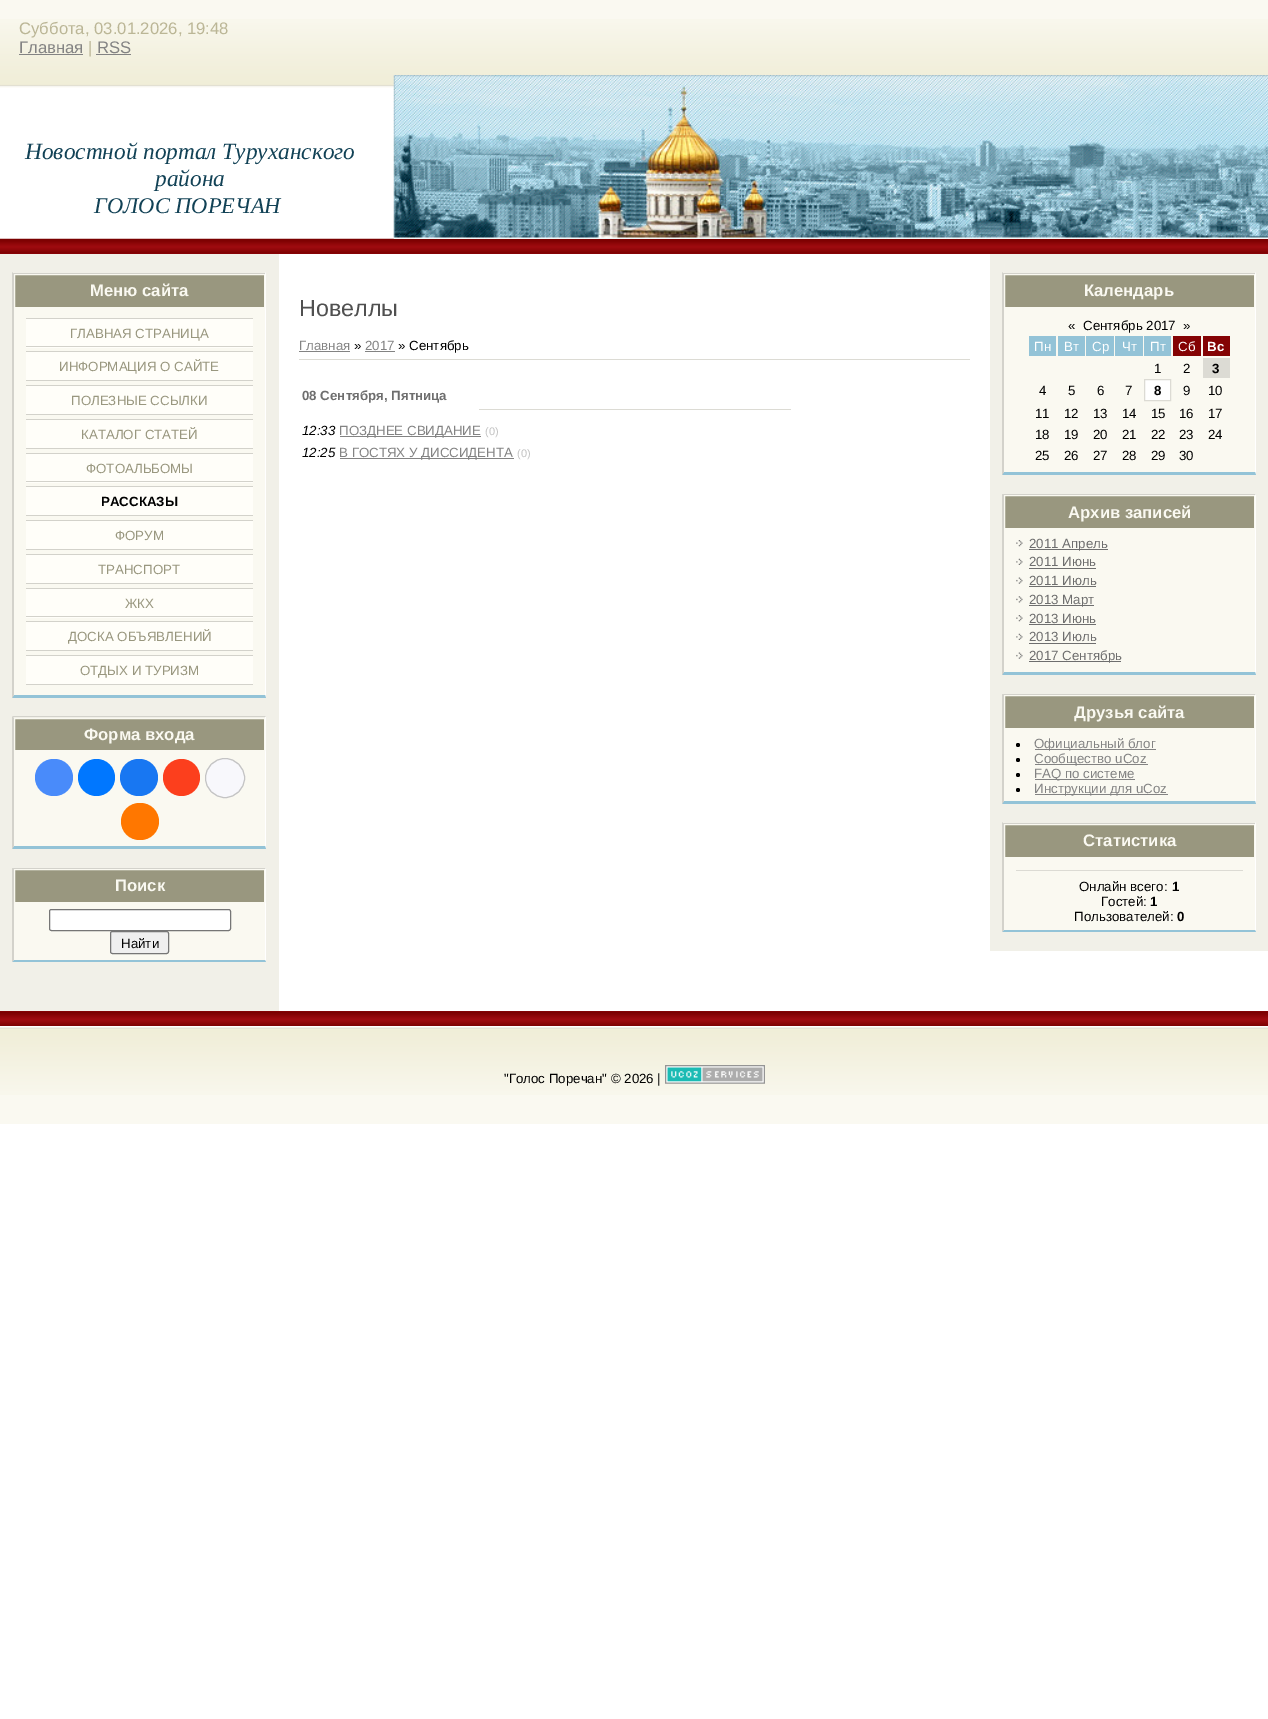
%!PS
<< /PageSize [1268 1719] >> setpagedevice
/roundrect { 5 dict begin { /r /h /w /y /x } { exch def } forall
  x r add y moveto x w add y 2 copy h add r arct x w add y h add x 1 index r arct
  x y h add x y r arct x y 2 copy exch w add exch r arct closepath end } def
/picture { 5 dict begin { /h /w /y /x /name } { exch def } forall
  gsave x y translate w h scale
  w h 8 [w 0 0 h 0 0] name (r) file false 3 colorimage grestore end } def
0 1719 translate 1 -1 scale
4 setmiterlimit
1 setgray
0 0 1268 1719 rectfill
0.98 0.976 0.945 setrgbcolor
0 0 1268 88 rectfill
(img1.rgb) 0 19 1268 69 picture
/LiberationSans-Regular [16.7 0 0 -16.7 0 0] selectfont
0.733 0.714 0.588 setrgbcolor
19 34 moveto (Суббота, 03.01.2026, 19:48) show
0.514 setgray
19 53 moveto (Главная) show
19 54 64 1 rectfill
0.733 0.714 0.588 setrgbcolor
88 53 moveto (|) show
0.514 setgray
97 53 moveto (RSS) show
96 54 35 1 rectfill
/LiberationSerif-Italic [23.3 0 0 -23.3 0 0] selectfont
0.071 0.259 0.337 setrgbcolor
25 159 moveto (Новостной портал Туруханского) show
155 186 moveto (района) show
/LiberationSerif-Italic [22.5 0 0 -22.5 0 0] selectfont
94 213 moveto (ГОЛОС ПОРЕЧАН) show
(img3.rgb) 0 238 1268 16 picture
(img2.rgb) 393 75 875 164 picture
0.945 0.941 0.91 setrgbcolor
0 254 279 757 rectfill
0.98 0.976 0.945 setrgbcolor
14 308 251 387 rectfill
0.827 0.824 0.796 setrgbcolor
13 273 253 1 rectfill
1 setgray
newpath 266 272 moveto 266 698 lineto 265 695 lineto 265 274 lineto closepath fill
0.576 0.765 0.843 setrgbcolor
newpath 266 698 moveto 12 698 lineto 14 695 lineto 265 695 lineto closepath fill
0.827 0.824 0.796 setrgbcolor
newpath 12 698 moveto 12 272 lineto 14 274 lineto 14 695 lineto closepath fill
0.6 0.592 0.498 setrgbcolor
newpath 14.5 274.5 moveto 264.5 274.5 lineto 264.5 307.5 lineto 14.5 307.5 lineto closepath gsave fill grestore
0.98 0.976 0.945 setrgbcolor
stroke
/LiberationSans-Bold [16.7 0 0 -16.7 0 0] selectfont
90 296 moveto (Меню сайта) show
1 0.996 0.976 setrgbcolor
26 319 227 29 rectfill
0.827 0.824 0.796 setrgbcolor
26 318 227 1 rectfill
26 346 227 1 rectfill
/LiberationSans-Regular [13.3 0 0 -13.3 0 0] selectfont
0.6 0.592 0.498 setrgbcolor
70 338 moveto (ГЛАВНАЯ СТРАНИЦА) show
1 0.996 0.976 setrgbcolor
26 352 227 28 rectfill
0.827 0.824 0.796 setrgbcolor
26 351 227 1 rectfill
26 380 227 1 rectfill
0.6 0.592 0.498 setrgbcolor
59 371 moveto (ИНФОРМАЦИЯ О САЙТЕ) show
1 0.996 0.976 setrgbcolor
26 386 227 28 rectfill
0.827 0.824 0.796 setrgbcolor
26 385 227 1 rectfill
26 414 227 1 rectfill
0.6 0.592 0.498 setrgbcolor
71 405 moveto (ПОЛЕЗНЫЕ ССЫЛКИ) show
1 0.996 0.976 setrgbcolor
26 420 227 28 rectfill
0.827 0.824 0.796 setrgbcolor
26 419 227 1 rectfill
26 448 227 1 rectfill
0.6 0.592 0.498 setrgbcolor
81 439 moveto (КАТАЛОГ СТАТЕЙ) show
1 0.996 0.976 setrgbcolor
26 454 227 29 rectfill
0.827 0.824 0.796 setrgbcolor
26 453 227 1 rectfill
26 481 227 1 rectfill
0.6 0.592 0.498 setrgbcolor
86 473 moveto (ФОТОАЛЬБОМЫ) show
1 0.996 0.976 setrgbcolor
26 487 227 28 rectfill
0.827 0.824 0.796 setrgbcolor
26 486 227 1 rectfill
26 515 227 1 rectfill
/LiberationSans-Bold [13.3 0 0 -13.3 0 0] selectfont
0 setgray
101 506 moveto (РАССКАЗЫ) show
1 0.996 0.976 setrgbcolor
26 521 227 28 rectfill
0.827 0.824 0.796 setrgbcolor
26 520 227 1 rectfill
26 549 227 1 rectfill
/LiberationSans-Regular [13.3 0 0 -13.3 0 0] selectfont
0.6 0.592 0.498 setrgbcolor
115 540 moveto (ФОРУМ) show
1 0.996 0.976 setrgbcolor
26 555 227 28 rectfill
0.827 0.824 0.796 setrgbcolor
26 554 227 1 rectfill
26 583 227 1 rectfill
0.6 0.592 0.498 setrgbcolor
98 574 moveto (ТРАНСПОРТ) show
1 0.996 0.976 setrgbcolor
26 589 227 29 rectfill
0.827 0.824 0.796 setrgbcolor
26 588 227 1 rectfill
26 616 227 1 rectfill
0.6 0.592 0.498 setrgbcolor
125 608 moveto (ЖКХ) show
1 0.996 0.976 setrgbcolor
26 622 227 28 rectfill
0.827 0.824 0.796 setrgbcolor
26 621 227 1 rectfill
26 650 227 1 rectfill
0.6 0.592 0.498 setrgbcolor
68 641 moveto (ДОСКА ОБЪЯВЛЕНИЙ) show
1 0.996 0.976 setrgbcolor
26 656 227 28 rectfill
0.827 0.824 0.796 setrgbcolor
26 655 227 1 rectfill
26 684 227 1 rectfill
0.6 0.592 0.498 setrgbcolor
80 675 moveto (ОТДЫХ И ТУРИЗМ) show
0.98 0.976 0.945 setrgbcolor
14 751 251 95 rectfill
0.827 0.824 0.796 setrgbcolor
13 716 253 1 rectfill
1 setgray
newpath 266 716 moveto 266 849 lineto 265 846 lineto 265 718 lineto closepath fill
0.576 0.765 0.843 setrgbcolor
newpath 266 849 moveto 12 849 lineto 14 846 lineto 265 846 lineto closepath fill
0.827 0.824 0.796 setrgbcolor
newpath 12 849 moveto 12 716 lineto 14 718 lineto 14 846 lineto closepath fill
0.6 0.592 0.498 setrgbcolor
newpath 14.5 718.5 moveto 264.5 718.5 lineto 264.5 750.5 lineto 14.5 750.5 lineto closepath gsave fill grestore
0.98 0.976 0.945 setrgbcolor
stroke
/LiberationSans-Bold [16.7 0 0 -16.7 0 0] selectfont
84 740 moveto (Форма входа) show
0.286 0.545 0.98 setrgbcolor
35 759 38 37 18.5 roundrect fill
0 0.467 1 setrgbcolor
newpath 96.5 777.5 18.5 0 360 arc closepath fill
0.094 0.467 0.949 setrgbcolor
120 759 38 37 18.5 roundrect fill
0.988 0.247 0.114 setrgbcolor
newpath 181.5 777.5 18.5 0 360 arc closepath fill
0.973 0.973 0.988 setrgbcolor
newpath 225 778 19.5 0 360 arc closepath gsave fill grestore
0.769 setgray
stroke
1 0.467 0 setrgbcolor
121 803 38 37 18.5 roundrect fill
0.98 0.976 0.945 setrgbcolor
14 903 251 57 rectfill
0.827 0.824 0.796 setrgbcolor
13 868 253 1 rectfill
1 setgray
newpath 266 868 moveto 266 962 lineto 265 960 lineto 265 869 lineto closepath fill
0.576 0.765 0.843 setrgbcolor
newpath 266 962 moveto 12 962 lineto 14 960 lineto 265 960 lineto closepath fill
0.827 0.824 0.796 setrgbcolor
newpath 12 962 moveto 12 868 lineto 14 869 lineto 14 960 lineto closepath fill
0.6 0.592 0.498 setrgbcolor
newpath 14.5 869.5 moveto 264.5 869.5 lineto 264.5 902.5 lineto 14.5 902.5 lineto closepath gsave fill grestore
0.98 0.976 0.945 setrgbcolor
stroke
115 891 moveto (Поиск) show
1 setgray
49.5 909.5 181 21 2 roundrect gsave fill grestore
0.463 setgray
stroke
0.937 setgray
110.5 931.5 58 22 2 roundrect gsave fill grestore
0.463 setgray
stroke
/LiberationSans-Regular [13.3 0 0 -13.3 0 0] selectfont
0 setgray
121 948 moveto (Найти) show
/LiberationSans-Regular [23.3 0 0 -23.3 0 0] selectfont
0.314 setgray
299 316 moveto (Новеллы) show
/LiberationSans-Regular [13.3 0 0 -13.3 0 0] selectfont
0.514 setgray
299 350 moveto (Главная) show
299 351 51 1 rectfill
0 setgray
354 350 moveto (») show
0.514 setgray
365 350 moveto (2017) show
365 351 30 1 rectfill
0 setgray
398 350 moveto (» Сентябрь) show
0.863 0.859 0.831 setrgbcolor
299 359 671 1 rectfill
/LiberationSans-Bold [13.3 0 0 -13.3 0 0] selectfont
0.431 setgray
302 400 moveto (08 Сентября, Пятница) show
0.863 0.859 0.831 setrgbcolor
479 409 312 1 rectfill
/LiberationSans-Italic [13.3 0 0 -13.3 0 0] selectfont
0 setgray
302 435 moveto (12:33) show
0.514 setgray
340 436 141 1 rectfill
/LiberationSans-Regular [13.3 0 0 -13.3 0 0] selectfont
339 435 moveto (ПОЗДНЕЕ СВИДАНИЕ) show
/LiberationSans-Regular [11 0 0 -11 0 0] selectfont
0.765 setgray
485 435 moveto (\(0\)) show
/LiberationSans-Italic [13.3 0 0 -13.3 0 0] selectfont
0 setgray
302 457 moveto (12:25) show
0.514 setgray
340 458 174 1 rectfill
/LiberationSans-Regular [13.3 0 0 -13.3 0 0] selectfont
339 457 moveto (В ГОСТЯХ У ДИССИДЕНТА) show
/LiberationSans-Regular [11 0 0 -11 0 0] selectfont
0.765 setgray
517 457 moveto (\(0\)) show
0.945 0.941 0.91 setrgbcolor
990 254 278 697 rectfill
0.98 0.976 0.945 setrgbcolor
1004 308 251 164 rectfill
0.827 0.824 0.796 setrgbcolor
1003 273 253 1 rectfill
1 setgray
newpath 1256 272 moveto 1256 475 lineto 1255 472 lineto 1255 274 lineto closepath fill
0.576 0.765 0.843 setrgbcolor
newpath 1256 475 moveto 1002 475 lineto 1004 472 lineto 1255 472 lineto closepath fill
0.827 0.824 0.796 setrgbcolor
newpath 1002 475 moveto 1002 272 lineto 1004 274 lineto 1004 472 lineto closepath fill
0.6 0.592 0.498 setrgbcolor
newpath 1004.5 274.5 moveto 1254.5 274.5 lineto 1254.5 307.5 lineto 1004.5 307.5 lineto closepath gsave fill grestore
0.98 0.976 0.945 setrgbcolor
stroke
/LiberationSans-Bold [16.7 0 0 -16.7 0 0] selectfont
1084 296 moveto (Календарь) show
/LiberationSans-Regular [13.3 0 0 -13.3 0 0] selectfont
0 setgray
1068 330 moveto («) show
1083 330 moveto (Сентябрь 2017) show
1183 330 moveto (») show
0.576 0.765 0.843 setrgbcolor
1029 336 27 20 rectfill
1 setgray
1034 351 moveto (Пн) show
0.576 0.765 0.843 setrgbcolor
1058 336 27 20 rectfill
1 setgray
1064 351 moveto (Вт) show
0.576 0.765 0.843 setrgbcolor
1086 336 28 20 rectfill
1 setgray
1092 351 moveto (Ср) show
0.576 0.765 0.843 setrgbcolor
1115 336 28 20 rectfill
1 setgray
1122 351 moveto (Чт) show
0.576 0.765 0.843 setrgbcolor
1144 336 27 20 rectfill
1 setgray
1150 351 moveto (Пт) show
0.518 0.012 0.016 setrgbcolor
1173 336 28 20 rectfill
1 setgray
1178 351 moveto (Сб) show
0.518 0.012 0.016 setrgbcolor
1203 336 27 20 rectfill
/LiberationSans-Bold [13.3 0 0 -13.3 0 0] selectfont
1 setgray
1207 351 moveto (Вс) show
/LiberationSans-Regular [13.3 0 0 -13.3 0 0] selectfont
0 setgray
1154 373 moveto (1) show
1183 373 moveto (2) show
0.863 0.859 0.831 setrgbcolor
1203 358 27 20 rectfill
/LiberationSans-Bold [13.3 0 0 -13.3 0 0] selectfont
0 setgray
1212 373 moveto (3) show
/LiberationSans-Regular [13.3 0 0 -13.3 0 0] selectfont
1039 395 moveto (4) show
1068 395 moveto (5) show
1097 395 moveto (6) show
1125 395 moveto (7) show
1 setgray
newpath 1144.5 379.5 moveto 1170.5 379.5 lineto 1170.5 400.5 lineto 1144.5 400.5 lineto closepath gsave fill grestore
0.863 0.859 0.831 setrgbcolor
stroke
/LiberationSans-Bold [13.3 0 0 -13.3 0 0] selectfont
0 setgray
1154 395 moveto (8) show
/LiberationSans-Regular [13.3 0 0 -13.3 0 0] selectfont
1183 395 moveto (9) show
1208 395 moveto (10) show
1035 418 moveto (11) show
1064 418 moveto (12) show
1093 418 moveto (13) show
1122 418 moveto (14) show
1151 418 moveto (15) show
1179 418 moveto (16) show
1208 418 moveto (17) show
1035 439 moveto (18) show
1064 439 moveto (19) show
1093 439 moveto (20) show
1122 439 moveto (21) show
1151 439 moveto (22) show
1179 439 moveto (23) show
1208 439 moveto (24) show
1035 460 moveto (25) show
1064 460 moveto (26) show
1093 460 moveto (27) show
1122 460 moveto (28) show
1151 460 moveto (29) show
1179 460 moveto (30) show
0.98 0.976 0.945 setrgbcolor
1004 529 251 143 rectfill
0.827 0.824 0.796 setrgbcolor
1003 494 253 1 rectfill
1 setgray
newpath 1256 494 moveto 1256 675 lineto 1255 672 lineto 1255 495 lineto closepath fill
0.576 0.765 0.843 setrgbcolor
newpath 1256 675 moveto 1002 675 lineto 1004 672 lineto 1255 672 lineto closepath fill
0.827 0.824 0.796 setrgbcolor
newpath 1002 675 moveto 1002 494 lineto 1004 495 lineto 1004 672 lineto closepath fill
0.6 0.592 0.498 setrgbcolor
newpath 1004.5 495.5 moveto 1254.5 495.5 lineto 1254.5 528.5 lineto 1004.5 528.5 lineto closepath gsave fill grestore
0.98 0.976 0.945 setrgbcolor
stroke
/LiberationSans-Bold [16.7 0 0 -16.7 0 0] selectfont
1068 518 moveto (Архив записей) show
(img4.rgb) 1016 540 7 7 picture
0.431 setgray
1029 549 79 1 rectfill
/LiberationSans-Regular [13.3 0 0 -13.3 0 0] selectfont
1029 548 moveto (2011 Апрель) show
(img5.rgb) 1016 558 7 7 picture
1029 566 moveto (2011 Июнь) show
1029 568 67 1 rectfill
(img6.rgb) 1016 577 7 7 picture
1029 585 moveto (2011 Июль) show
1029 586 67 1 rectfill
(img7.rgb) 1016 596 7 7 picture
1029 605 65 1 rectfill
1029 604 moveto (2013 Март) show
(img4.rgb) 1016 615 7 7 picture
1029 623 moveto (2013 Июнь) show
1029 624 67 1 rectfill
(img5.rgb) 1016 633 7 7 picture
1029 641 moveto (2013 Июль) show
1029 643 67 1 rectfill
(img6.rgb) 1016 652 7 7 picture
1029 661 92 1 rectfill
1029 660 moveto (2017 Сентябрь) show
0.98 0.976 0.945 setrgbcolor
1004 729 251 72 rectfill
0.827 0.824 0.796 setrgbcolor
1003 694 253 1 rectfill
1 setgray
newpath 1256 694 moveto 1256 804 lineto 1255 801 lineto 1255 695 lineto closepath fill
0.576 0.765 0.843 setrgbcolor
newpath 1256 804 moveto 1002 804 lineto 1004 801 lineto 1255 801 lineto closepath fill
0.827 0.824 0.796 setrgbcolor
newpath 1002 804 moveto 1002 694 lineto 1004 695 lineto 1004 801 lineto closepath fill
0.6 0.592 0.498 setrgbcolor
newpath 1004.5 695.5 moveto 1254.5 695.5 lineto 1254.5 728.5 lineto 1004.5 728.5 lineto closepath gsave fill grestore
0.98 0.976 0.945 setrgbcolor
stroke
/LiberationSans-Bold [16.7 0 0 -16.7 0 0] selectfont
1074 718 moveto (Друзья сайта) show
0 setgray
newpath 1018 745 2 0 360 arc closepath fill
0.514 setgray
1035 749 121 1 rectfill
/LiberationSans-Regular [13.3 0 0 -13.3 0 0] selectfont
1034 748 moveto (Официальный блог) show
0 setgray
newpath 1018 760 2 0 360 arc closepath fill
0.514 setgray
1035 764 113 1 rectfill
1034 763 moveto (Сообщество uCoz) show
0 setgray
newpath 1018 775 2 0 360 arc closepath fill
0.514 setgray
1035 779 100 1 rectfill
1034 778 moveto (FAQ по системе) show
0 setgray
newpath 1018 790 2 0 360 arc closepath fill
0.514 setgray
1035 794 133 1 rectfill
1034 793 moveto (Инструкции для uCoz) show
0.98 0.976 0.945 setrgbcolor
1004 858 251 72 rectfill
0.827 0.824 0.796 setrgbcolor
1003 823 253 1 rectfill
1 setgray
newpath 1256 822 moveto 1256 932 lineto 1255 930 lineto 1255 824 lineto closepath fill
0.576 0.765 0.843 setrgbcolor
newpath 1256 932 moveto 1002 932 lineto 1004 930 lineto 1255 930 lineto closepath fill
0.827 0.824 0.796 setrgbcolor
newpath 1002 932 moveto 1002 822 lineto 1004 824 lineto 1004 930 lineto closepath fill
0.6 0.592 0.498 setrgbcolor
newpath 1004.5 824.5 moveto 1254.5 824.5 lineto 1254.5 857.5 lineto 1004.5 857.5 lineto closepath gsave fill grestore
0.98 0.976 0.945 setrgbcolor
stroke
/LiberationSans-Bold [16.7 0 0 -16.7 0 0] selectfont
1083 846 moveto (Статистика) show
0.863 0.859 0.831 setrgbcolor
1016 870 227 1 rectfill
/LiberationSans-Regular [13.3 0 0 -13.3 0 0] selectfont
0 setgray
1079 891 moveto (Онлайн всего:) show
/LiberationSans-Bold [13.3 0 0 -13.3 0 0] selectfont
1172 891 moveto (1) show
/LiberationSans-Regular [13.3 0 0 -13.3 0 0] selectfont
1101 906 moveto (Гостей:) show
/LiberationSans-Bold [13.3 0 0 -13.3 0 0] selectfont
1150 906 moveto (1) show
/LiberationSans-Regular [13.3 0 0 -13.3 0 0] selectfont
1074 921 moveto (Пользователей:) show
/LiberationSans-Bold [13.3 0 0 -13.3 0 0] selectfont
1177 921 moveto (0) show
(img8.rgb) 0 1011 1268 15 picture
0.98 0.976 0.945 setrgbcolor
0 1026 1268 98 rectfill
(img9.rgb) 0 1026 1268 69 picture
/LiberationSans-Regular [13.3 0 0 -13.3 0 0] selectfont
0 setgray
504 1083 moveto ("Голос Поречан" © 2026 |) show
(img10.rgb) 665 1065 100 19 picture
showpage
